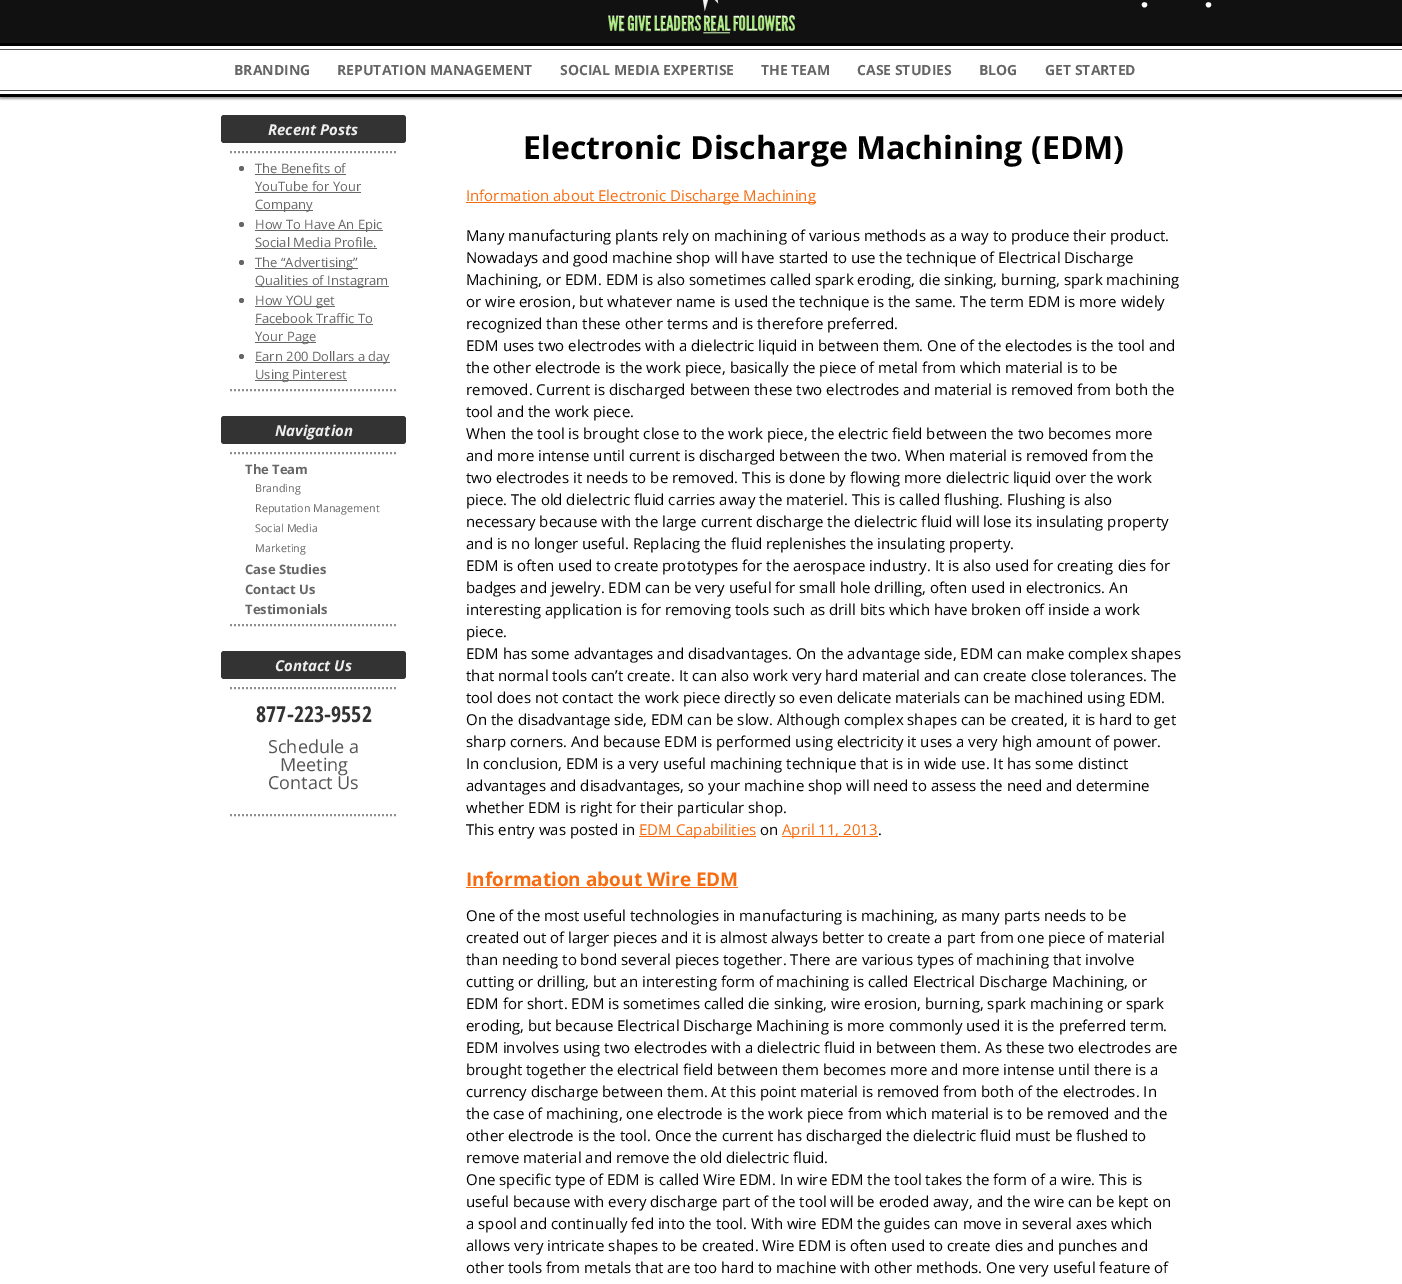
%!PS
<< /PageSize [1402 1284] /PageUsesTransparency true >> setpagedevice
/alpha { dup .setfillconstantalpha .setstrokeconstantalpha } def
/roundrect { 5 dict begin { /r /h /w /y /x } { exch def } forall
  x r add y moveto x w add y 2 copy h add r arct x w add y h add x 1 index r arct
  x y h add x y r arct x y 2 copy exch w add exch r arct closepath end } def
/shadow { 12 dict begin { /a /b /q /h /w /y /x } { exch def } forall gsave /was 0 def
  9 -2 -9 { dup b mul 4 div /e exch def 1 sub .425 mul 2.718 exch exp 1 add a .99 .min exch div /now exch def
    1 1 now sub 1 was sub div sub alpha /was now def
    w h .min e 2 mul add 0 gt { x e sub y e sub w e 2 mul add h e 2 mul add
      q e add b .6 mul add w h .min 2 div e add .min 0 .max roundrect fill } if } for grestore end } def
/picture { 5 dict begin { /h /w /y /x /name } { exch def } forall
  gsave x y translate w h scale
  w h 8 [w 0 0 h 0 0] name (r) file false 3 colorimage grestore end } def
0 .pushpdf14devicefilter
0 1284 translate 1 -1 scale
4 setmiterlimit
1 setgray
0 0 1402 1284 rectfill
0.067 setgray
0 0 1402 43 rectfill
(img1.rgb) 608 0 187 34 picture
/OpenSans-Bold [32 0 0 -32 0 0] selectfont
1 setgray
1140 7 moveto (.) show
1204 7 moveto (.) show
gsave
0 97 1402 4 rectclip
0 setgray
0 45 1402 54 0 1 0.4 shadow
grestore
0 setgray
0 43 1402 3 rectfill
0 94 1402 3 rectfill
0.333 setgray
0 49 1402 1 rectfill
0 90 1402 1 rectfill
/OpenSans-Bold [14 0 0 -14 0 0] selectfont
0.4 setgray
234 75 moveto (BRANDING) show
337 75 moveto (REPUTATION MANAGEMENT) show
560 75 moveto (SOCIAL MEDIA EXPERTISE) show
761 75 moveto (THE TEAM) show
857 75 moveto (CASE STUDIES) show
979 75 moveto (BLOG) show
1045 75 moveto (GET STARTED) show
0.2 setgray
221 115 185 28 3 roundrect fill
/OpenSans-BoldItalic [15 0 0 -15 0 0] selectfont
0.933 setgray
268 135 moveto (Recent Posts) show
0.569 0.557 0.561 setrgbcolor
2 setlinewidth
[2 2] 0 setdash
newpath 230 152 moveto 397 152 lineto stroke
newpath 230 390 moveto 397 390 lineto stroke
0.4 setgray
newpath 241.5 168.5 2.5 0 360 arc closepath fill
/OpenSans-Regular [13 0 0 -13 0 0] selectfont
255 173 moveto (The Benefits of) show
255 174 91 1 rectfill
255 191 moveto (YouTube for Your) show
255 192 106 1 rectfill
255 210 58 1 rectfill
255 209 moveto (Company) show
newpath 241.5 224.5 2.5 0 360 arc closepath fill
255 230 128 1 rectfill
255 229 moveto (How To Have An Epic) show
255 247 moveto (Social Media Profile.) show
255 248 122 1 rectfill
newpath 241.5 262.5 2.5 0 360 arc closepath fill
255 268 103 1 rectfill
255 267 moveto (The “Advertising”) show
255 286 134 1 rectfill
255 285 moveto (Qualities of Instagram) show
newpath 241.5 300.5 2.5 0 360 arc closepath fill
255 306 80 1 rectfill
255 305 moveto (How YOU get) show
255 323 moveto (Facebook Traffic To) show
255 324 118 1 rectfill
255 342 61 1 rectfill
255 341 moveto (Your Page) show
newpath 241.5 356.5 2.5 0 360 arc closepath fill
255 362 135 1 rectfill
255 361 moveto (Earn 200 Dollars a day) show
255 380 92 1 rectfill
255 379 moveto (Using Pinterest) show
0.2 setgray
221 416 185 28 3 roundrect fill
/OpenSans-BoldItalic [15 0 0 -15 0 0] selectfont
0.933 setgray
275 436 moveto (Navigation) show
0.569 0.557 0.561 setrgbcolor
newpath 230 453 moveto 397 453 lineto stroke
newpath 230 625 moveto 397 625 lineto stroke
/OpenSans-Bold [13 0 0 -13 0 0] selectfont
0.4 setgray
245 474 moveto (The Team) show
/OpenSans-Regular [10.75 0 0 -10.75 0 0] selectfont
255 492 moveto (Branding) show
255 512 moveto (Reputation Management) show
255 532 moveto (Social Media) show
255 552 moveto (Marketing) show
/OpenSans-Bold [13 0 0 -13 0 0] selectfont
245 574 moveto (Case Studies) show
245 594 moveto (Contact Us) show
245 614 moveto (Testimonials) show
0.2 setgray
221 651 185 28 3 roundrect fill
/OpenSans-BoldItalic [15 0 0 -15 0 0] selectfont
0.933 setgray
275 671 moveto (Contact Us) show
0.569 0.557 0.561 setrgbcolor
newpath 230 688 moveto 397 688 lineto stroke
newpath 230 815 moveto 397 815 lineto stroke
/OpenSansCondensed-Bold [22 0 0 -22 0 0] selectfont
0.2 setgray
256 722 moveto (877-223-9552) show
/OpenSans-Regular [18 0 0 -18 0 0] selectfont
0.333 setgray
268 753 moveto (Schedule a) show
280 771 moveto (Meeting) show
268 789 moveto (Contact Us) show
/OpenSans-Bold [32 0 0 -32 0 0] selectfont
0 setgray
523 159 moveto (Electronic Discharge Machining \(EDM\)) show
0.965 0.424 0.067 setrgbcolor
466 202 350 1 rectfill
/OpenSans-Regular [15 0 0 -15 0 0] selectfont
466 201 moveto (Information about Electronic Discharge Machining) show
0 setgray
466 241 moveto (Many manufacturing plants rely on machining of various methods as a way to produce their product.) show
466 263 moveto (Nowadays and good machine shop will have started to use the technique of Electrical Discharge) show
466 285 moveto (Machining, or EDM. EDM is also sometimes called spark eroding, die sinking, burning, spark machining) show
466 307 moveto (or wire erosion, but whatever name is used the technique is the same. The term EDM is more widely) show
466 329 moveto (recognized than these other terms and is therefore preferred.) show
466 351 moveto (EDM uses two electrodes with a dielectric liquid in between them. One of the electodes is the tool and) show
466 373 moveto (the other electrode is the work piece, basically the piece of metal from which material is to be) show
466 395 moveto (removed. Current is discharged between these two electrodes and material is removed from both the) show
466 417 moveto (tool and the work piece.) show
466 439 moveto (When the tool is brought close to the work piece, the electric field between the two becomes more) show
466 461 moveto (and more intense until current is discharged between the two. When material is removed from the) show
466 483 moveto (two electrodes it needs to be removed. This is done by flowing more dielectric liquid over the work) show
466 505 moveto (piece. The old dielectric fluid carries away the materiel. This is called flushing. Flushing is also) show
466 527 moveto (necessary because with the large current discharge the dielectric fluid will lose its insulating property) show
466 549 moveto (and is no longer useful. Replacing the fluid replenishes the insulating property.) show
466 571 moveto (EDM is often used to create prototypes for the aerospace industry. It is also used for creating dies for) show
466 593 moveto (badges and jewelry. EDM can be very useful for small hole drilling, often used in electronics. An) show
466 615 moveto (interesting application is for removing tools such as drill bits which have broken off inside a work) show
466 637 moveto (piece.) show
466 659 moveto (EDM has some advantages and disadvantages. On the advantage side, EDM can make complex shapes) show
466 681 moveto (that normal tools can’t create. It can also work very hard material and can create close tolerances. The) show
466 703 moveto (tool does not contact the work piece directly so even delicate materials can be machined using EDM.) show
466 725 moveto (On the disadvantage side, EDM can be slow. Although complex shapes can be created, it is hard to get) show
466 747 moveto (sharp corners. And because EDM is performed using electricity it uses a very high amount of power.) show
466 769 moveto (In conclusion, EDM is a very useful machining technique that is in wide use. It has some distinct) show
466 791 moveto (advantages and disadvantages, so your machine shop will need to assess the need and determine) show
466 813 moveto (whether EDM is right for their particular shop.) show
466 835 moveto (This entry was posted in) show
0.965 0.424 0.067 setrgbcolor
639 836 117 1 rectfill
639 835 moveto (EDM Capabilities) show
0 setgray
760 835 moveto (on) show
0.965 0.424 0.067 setrgbcolor
782 836 96 1 rectfill
782 835 moveto (April 11, 2013) show
0 setgray
878 835 moveto (.) show
/OpenSans-Bold [19 0 0 -19 0 0] selectfont
0.965 0.424 0.067 setrgbcolor
466 886 moveto (Information about Wire EDM) show
466 887 272 1 rectfill
/OpenSans-Regular [15 0 0 -15 0 0] selectfont
0 setgray
466 921 moveto (One of the most useful technologies in manufacturing is machining, as many parts needs to be) show
466 943 moveto (created out of larger pieces and it is almost always better to create a part from one piece of material) show
466 965 moveto (than needing to bond several pieces together. There are various types of machining that involve) show
466 987 moveto (cutting or drilling, but an interesting form of machining is called Electrical Discharge Machining, or) show
466 1009 moveto (EDM for short. EDM is sometimes called die sinking, wire erosion, burning, spark machining or spark) show
466 1031 moveto (eroding, but because Electrical Discharge Machining is more commonly used it is the preferred term.) show
466 1053 moveto (EDM involves using two electrodes with a dielectric fluid in between them. As these two electrodes are) show
466 1075 moveto (brought together the electrical field between them becomes more and more intense until there is a) show
466 1097 moveto (currency discharge between them. At this point material is removed from both of the electrodes. In) show
466 1119 moveto (the case of machining, one electrode is the work piece from which material is to be removed and the) show
466 1141 moveto (other electrode is the tool. Once the current has discharged the dielectric fluid must be flushed to) show
466 1163 moveto (remove material and remove the old dielectric fluid.) show
466 1185 moveto (One specific type of EDM is called Wire EDM. In wire EDM the tool takes the form of a wire. This is) show
466 1207 moveto (useful because with every discharge part of the tool will be eroded away, and the wire can be kept on) show
466 1229 moveto (a spool and continually fed into the tool. With wire EDM the guides can move in several axes which) show
466 1251 moveto (allows very intricate shapes to be created. Wire EDM is often used to create dies and punches and) show
466 1273 moveto (other tools from metals that are too hard to machine with other methods. One very useful feature of) show
.poppdf14devicefilter showpage
